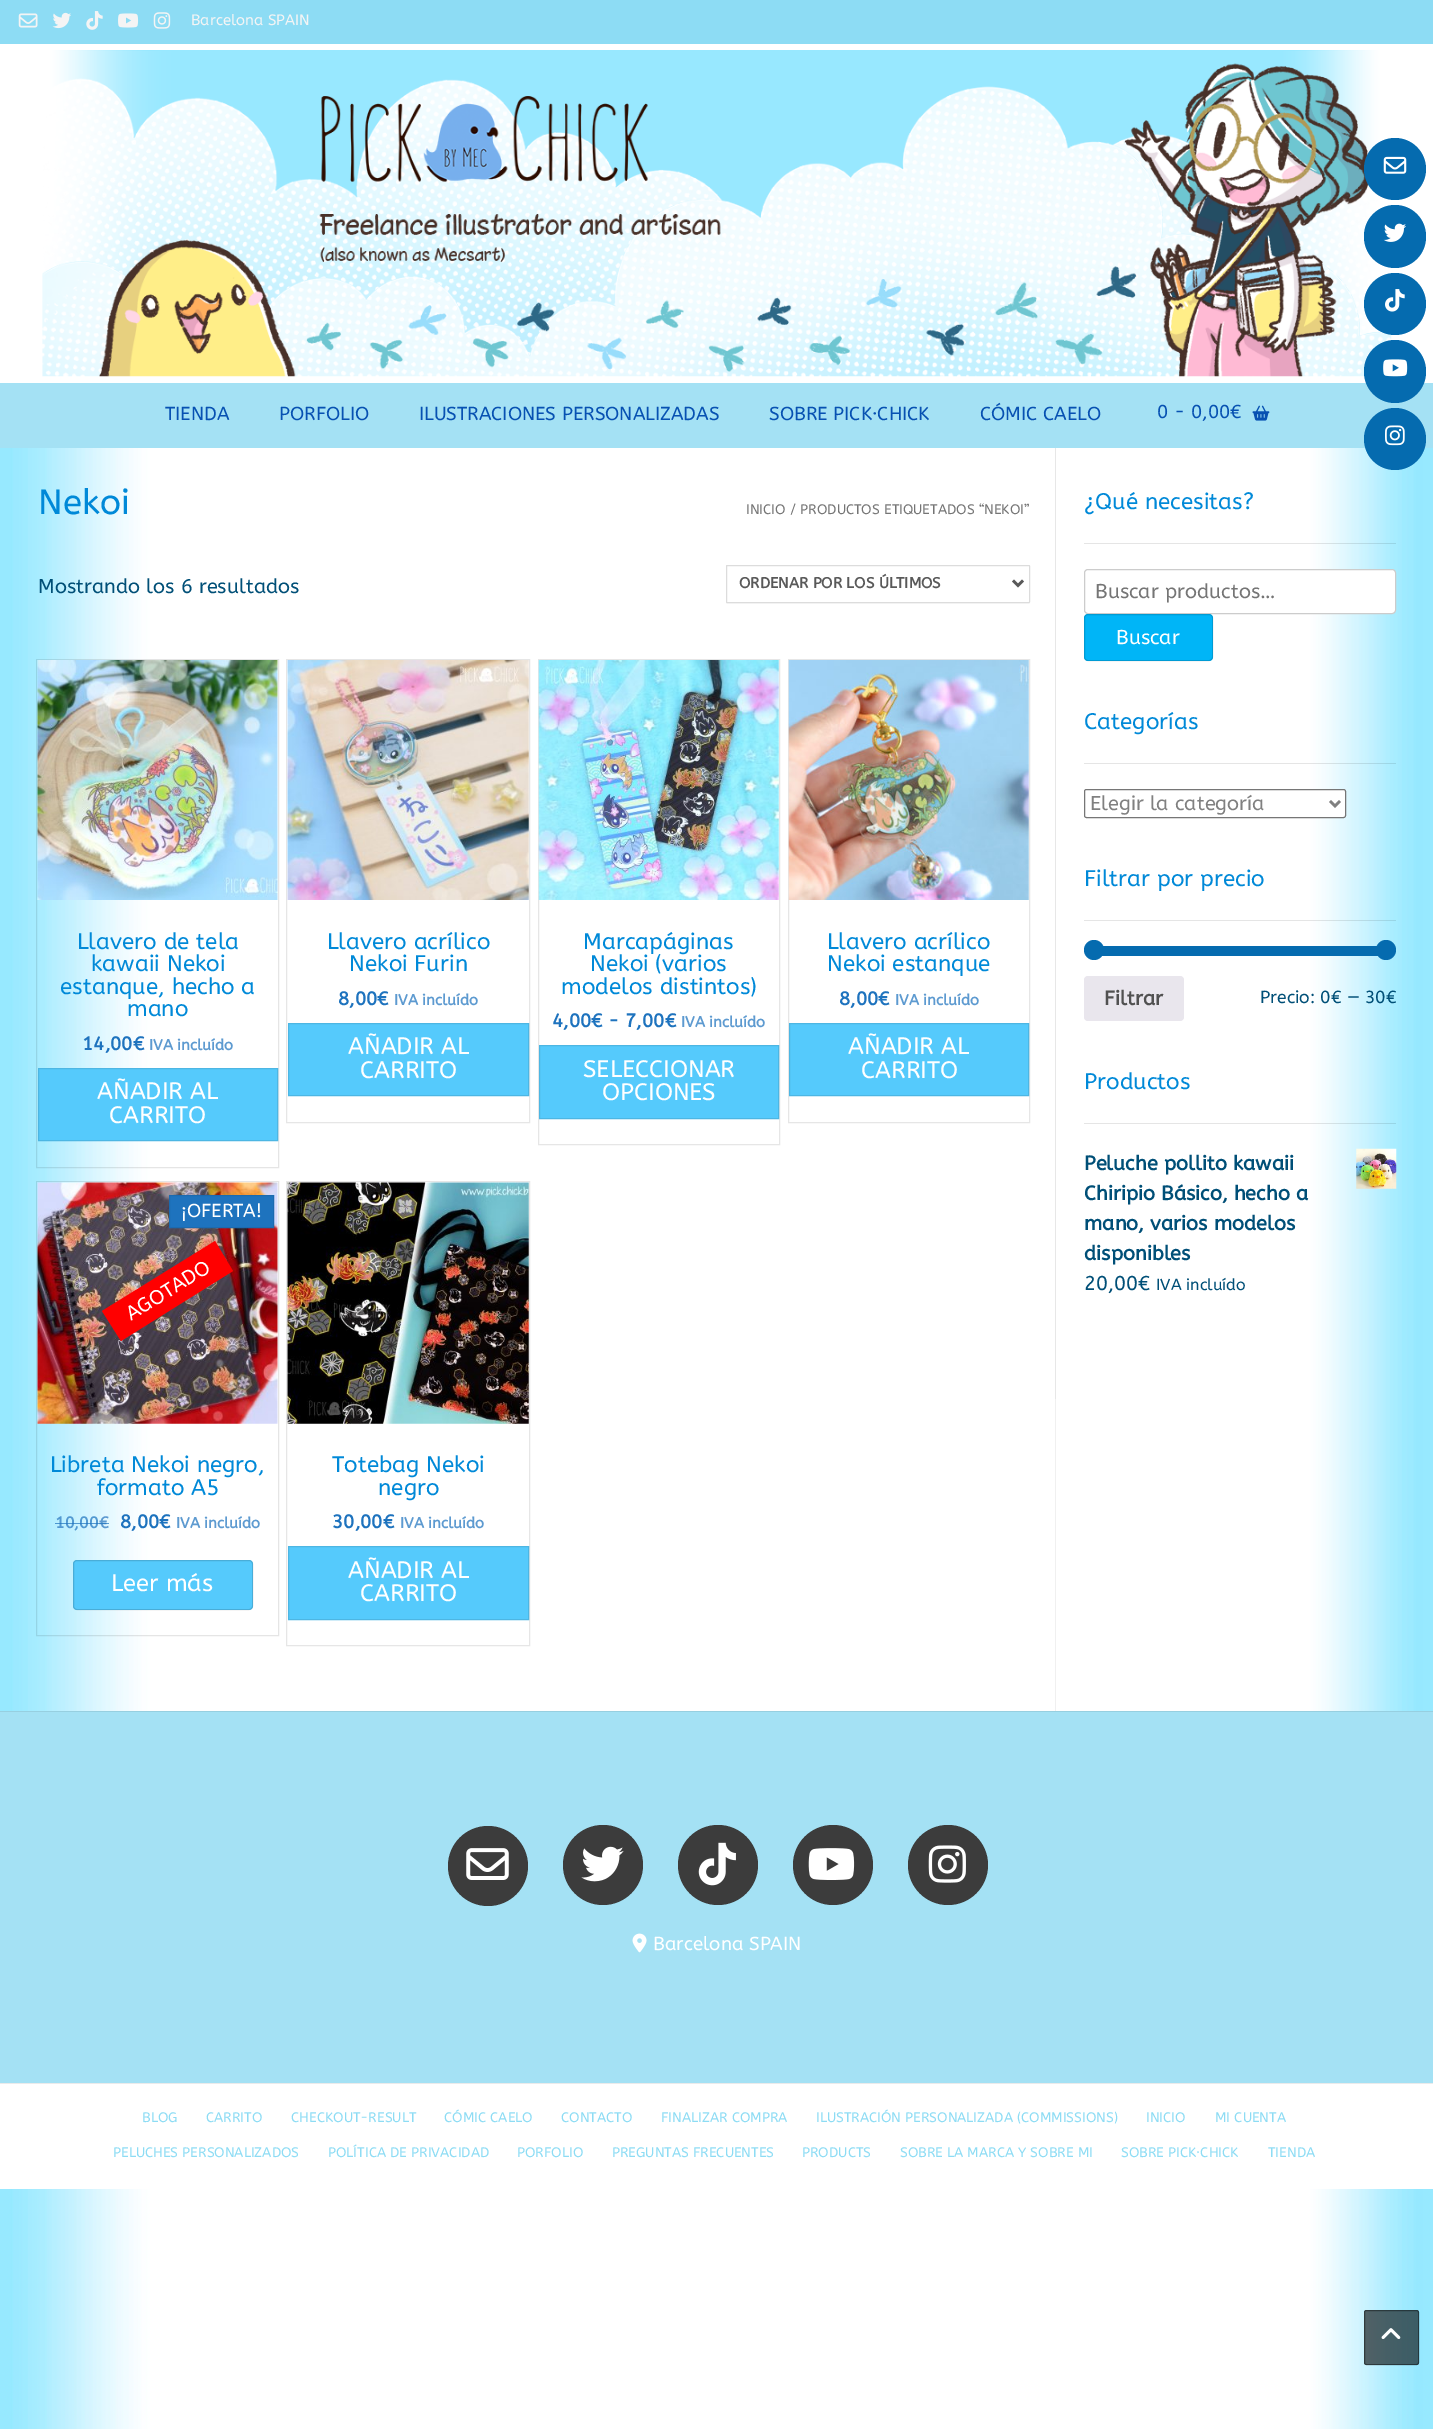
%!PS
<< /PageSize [1433 2429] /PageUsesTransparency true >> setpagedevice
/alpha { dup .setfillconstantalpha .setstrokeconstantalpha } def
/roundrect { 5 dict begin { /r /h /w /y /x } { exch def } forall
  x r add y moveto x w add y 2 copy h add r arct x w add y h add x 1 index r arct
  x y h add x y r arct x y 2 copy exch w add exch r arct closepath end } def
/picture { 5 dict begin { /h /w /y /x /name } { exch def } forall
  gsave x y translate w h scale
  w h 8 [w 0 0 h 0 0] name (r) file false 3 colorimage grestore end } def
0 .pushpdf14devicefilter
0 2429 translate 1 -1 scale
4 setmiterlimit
1 setgray
0 0 1433 2429 rectfill
(img1.rgb) 0 448 1433 1981 picture
0.553 0.863 0.957 setrgbcolor
0 0 1433 44 rectfill
(img2.rgb) 18 13 20 15 picture
(img3.rgb) 52 12 19 17 picture
(img4.rgb) 86 11 17 19 picture
(img5.rgb) 118 13 21 15 picture
(img6.rgb) 153 12 18 17 picture
/ABeeZee-Regular [15 0 0 -15 0 0] selectfont
0.957 setgray
191 25 moveto (Barcelona SPAIN) show
(img7.rgb) 42 50 1350 327 picture
0.643 0.882 0.957 setrgbcolor
0 383 1433 65 rectfill
/ABeeZee-Regular [18.75 0 0 -18.75 0 0] selectfont
0.027 0.318 0.698 setrgbcolor
165 420 moveto (TIENDA) show
279 420 moveto (PORFOLIO) show
419 420 moveto (ILUSTRACIONES PERSONALIZADAS) show
769 420 moveto (SOBRE PICK·CHICK) show
980 420 moveto (CÓMIC CAELO) show
1157 418 moveto (0 - 0,00€) show
(img8.rgb) 1252 405 18 16 picture
0.961 setgray
newpath 1055 448 moveto 1055 1399 lineto 1395 1399 lineto 1056 1399 lineto 1056 448 lineto closepath fill
0.06 alpha
0 setgray
1055 448 1 1263 rectfill
/ABeeZee-Regular [35 0 0 -35 0 0] selectfont
1 alpha
0 0.537 0.847 setrgbcolor
38 514 moveto (Nekoi) show
/ABeeZee-Regular [13.75 0 0 -13.75 0 0] selectfont
0.459 setgray
746 514 moveto (INICIO) show
790 514 moveto (/ PRODUCTOS ETIQUETADOS “NEKOI”) show
/ABeeZee-Regular [20 0 0 -20 0 0] selectfont
0 0.31 0.467 setrgbcolor
38 593 moveto (Mostrando los 6 resultados) show
0.98 setgray
newpath 726 566 moveto 726 603 lineto 726 604 726 604 727 604 curveto 1029 604 lineto 1030 604 1030 604 1030 603 curveto 1030 601 lineto 1030 602 1029 602 1029 602 curveto 728 602 lineto 727 602 726 602 726 601 curveto closepath fill
1 setgray
726.5 565.5 303 37 0.5 roundrect gsave fill grestore
0.863 setgray
stroke
0.349 setgray
2.5 setlinewidth
newpath 1013 580.5 moveto 1018 585.5 lineto 1023 580.5 lineto stroke
/ABeeZee-Bold [15 0 0 -15 0 0] selectfont
739 588 moveto (ORDENAR POR LOS ÚLTIMOS) show
0.1 alpha
0 setgray
1 setlinewidth
36.5 659.5 242 508 rectstroke
1 alpha
(img9.rgb) 37 660 241 240 picture
/ABeeZee-Regular [22.5 0 0 -22.5 0 0] selectfont
0 0.537 0.847 setrgbcolor
77 949 moveto (Llavero de tela) show
91 971 moveto (kawaii Nekoi) show
60 994 moveto (estanque, hecho a) show
127 1016 moveto (mano) show
/ABeeZee-Bold [18.75 0 0 -18.75 0 0] selectfont
0.118 0.451 0.745 setrgbcolor
82 1050 moveto (14,00€) show
/ABeeZee-Bold [15 0 0 -15 0 0] selectfont
0.365 0.604 0.816 setrgbcolor
149 1050 moveto (IVA incluído) show
0.333 0.792 0.988 setrgbcolor
newpath 38.5 1068.5 moveto 277.5 1068.5 lineto 277.5 1140.5 lineto 38.5 1140.5 lineto closepath gsave fill grestore
0.302 0.714 0.89 setrgbcolor
stroke
/ABeeZee-Regular [23.75 0 0 -23.75 0 0] selectfont
1 setgray
97 1099 moveto (AÑADIR AL) show
109 1123 moveto (CARRITO) show
0.902 setgray
286.5 659.5 243 463 rectstroke
(img10.rgb) 287 660 242 240 picture
/ABeeZee-Regular [22.5 0 0 -22.5 0 0] selectfont
0 0.537 0.847 setrgbcolor
327 949 moveto (Llavero acrílico) show
349 971 moveto (Nekoi Furin) show
/ABeeZee-Bold [18.75 0 0 -18.75 0 0] selectfont
0.118 0.451 0.745 setrgbcolor
338 1005 moveto (8,00€) show
/ABeeZee-Bold [15 0 0 -15 0 0] selectfont
0.365 0.604 0.816 setrgbcolor
394 1005 moveto (IVA incluído) show
0.333 0.792 0.988 setrgbcolor
newpath 288.5 1023.5 moveto 528.5 1023.5 lineto 528.5 1095.5 lineto 288.5 1095.5 lineto closepath gsave fill grestore
0.302 0.714 0.89 setrgbcolor
stroke
/ABeeZee-Regular [23.75 0 0 -23.75 0 0] selectfont
1 setgray
348 1054 moveto (AÑADIR AL) show
360 1078 moveto (CARRITO) show
0.902 setgray
538.5 659.5 241 485 rectstroke
(img11.rgb) 538 660 241 240 picture
/ABeeZee-Regular [22.5 0 0 -22.5 0 0] selectfont
0 0.537 0.847 setrgbcolor
583 949 moveto (Marcapáginas) show
590 971 moveto (Nekoi \(varios) show
561 994 moveto (modelos distintos\)) show
/ABeeZee-Bold [18.75 0 0 -18.75 0 0] selectfont
0.118 0.451 0.745 setrgbcolor
552 1027 moveto (4,00€ - 7,00€) show
/ABeeZee-Bold [15 0 0 -15 0 0] selectfont
0.365 0.604 0.816 setrgbcolor
681 1027 moveto (IVA incluído) show
0.333 0.792 0.988 setrgbcolor
newpath 539.5 1045.5 moveto 778.5 1045.5 lineto 778.5 1118.5 lineto 539.5 1118.5 lineto closepath gsave fill grestore
0.302 0.714 0.89 setrgbcolor
stroke
/ABeeZee-Regular [23.75 0 0 -23.75 0 0] selectfont
1 setgray
583 1077 moveto (SELECCIONAR) show
602 1100 moveto (OPCIONES) show
0.902 setgray
788.5 659.5 241 463 rectstroke
(img12.rgb) 788 660 241 240 picture
/ABeeZee-Regular [22.5 0 0 -22.5 0 0] selectfont
0 0.537 0.847 setrgbcolor
827 949 moveto (Llavero acrílico) show
827 971 moveto (Nekoi estanque) show
/ABeeZee-Bold [18.75 0 0 -18.75 0 0] selectfont
0.118 0.451 0.745 setrgbcolor
839 1005 moveto (8,00€) show
/ABeeZee-Bold [15 0 0 -15 0 0] selectfont
0.365 0.604 0.816 setrgbcolor
895 1005 moveto (IVA incluído) show
0.333 0.792 0.988 setrgbcolor
newpath 789.5 1023.5 moveto 1028.5 1023.5 lineto 1028.5 1095.5 lineto 789.5 1095.5 lineto closepath gsave fill grestore
0.302 0.714 0.89 setrgbcolor
stroke
/ABeeZee-Regular [23.75 0 0 -23.75 0 0] selectfont
1 setgray
848 1054 moveto (AÑADIR AL) show
861 1078 moveto (CARRITO) show
0.1 alpha
0 setgray
36.5 1181.5 242 454 rectstroke
1 alpha
(img13.rgb) 37 1182 241 242 picture
0.118 0.451 0.745 setrgbcolor
newpath 169.5 1195.5 moveto 273.5 1195.5 lineto 273.5 1227.5 lineto 169.5 1227.5 lineto closepath gsave fill grestore
0.11 0.416 0.686 setrgbcolor
stroke
/ABeeZee-Regular [18.75 0 0 -18.75 0 0] selectfont
1 setgray
181 1217 moveto (¡OFERTA!) show
/ABeeZee-Regular [22.5 0 0 -22.5 0 0] selectfont
0 0.537 0.847 setrgbcolor
50 1472 moveto (Libreta Nekoi negro,) show
97 1495 moveto (formato A5) show
/ABeeZee-Bold [16 0 0 -16 0 0] selectfont
0.322 0.6 0.82 setrgbcolor
55 1528 moveto (10,00) show
0.7 alpha
0.118 0.451 0.745 setrgbcolor
55 1523 44 1 rectfill
1 alpha
0.365 0.604 0.816 setrgbcolor
99 1528 moveto (€) show
0.7 alpha
0.118 0.451 0.745 setrgbcolor
99 1523 10 1 rectfill
/ABeeZee-Bold [18.75 0 0 -18.75 0 0] selectfont
1 alpha
120 1528 moveto (8,00€) show
/ABeeZee-Bold [15 0 0 -15 0 0] selectfont
0.365 0.604 0.816 setrgbcolor
176 1528 moveto (IVA incluído) show
1 0 0 setrgbcolor
newpath 102 1311 moveto 215 1241 lineto 233 1271 lineto 121 1341 lineto closepath fill
/ABeeZee-Regular [20 0 0 -20 0 0] selectfont
1 setgray
gsave 131 1321 translate -32 rotate 0 0 moveto (AGOTADO) show grestore
0.333 0.792 0.988 setrgbcolor
73 1560 180 50 4 roundrect fill
0.14 alpha
0 setgray
73.5 1560.5 179 49 3.5 roundrect stroke
/ABeeZee-Regular [23.75 0 0 -23.75 0 0] selectfont
1 alpha
1 setgray
111 1591 moveto (Leer más) show
0.902 setgray
286.5 1181.5 243 464 rectstroke
(img14.rgb) 287 1182 242 242 picture
/ABeeZee-Regular [22.5 0 0 -22.5 0 0] selectfont
0 0.537 0.847 setrgbcolor
332 1472 moveto (Totebag Nekoi) show
378 1495 moveto (negro) show
/ABeeZee-Bold [18.75 0 0 -18.75 0 0] selectfont
0.118 0.451 0.745 setrgbcolor
332 1528 moveto (30,00€) show
/ABeeZee-Bold [15 0 0 -15 0 0] selectfont
0.365 0.604 0.816 setrgbcolor
400 1528 moveto (IVA incluído) show
0.333 0.792 0.988 setrgbcolor
newpath 288.5 1546.5 moveto 528.5 1546.5 lineto 528.5 1619.5 lineto 288.5 1619.5 lineto closepath gsave fill grestore
0.302 0.714 0.89 setrgbcolor
stroke
/ABeeZee-Regular [23.75 0 0 -23.75 0 0] selectfont
1 setgray
348 1578 moveto (AÑADIR AL) show
360 1601 moveto (CARRITO) show
0.1 alpha
0 setgray
1084 543 312 1 rectfill
/ABeeZee-Regular [22.5 0 0 -22.5 0 0] selectfont
1 alpha
0 0.537 0.847 setrgbcolor
1084 509 moveto (¿Qué necesitas?) show
1 setgray
1084.5 569.5 311 44 3.5 roundrect gsave fill grestore
0.8 setgray
stroke
/ABeeZee-Regular [20 0 0 -20 0 0] selectfont
0.459 setgray
1095 598 moveto (Buscar productos…) show
0 0.71 0.969 setrgbcolor
1084 614 129 47 4 roundrect fill
0.14 alpha
0 setgray
1084.5 614.5 128 46 3.5 roundrect stroke
1 alpha
1 setgray
1116 644 moveto (Buscar) show
0.1 alpha
0 setgray
1084 763 312 1 rectfill
/ABeeZee-Regular [22.5 0 0 -22.5 0 0] selectfont
1 alpha
0 0.537 0.847 setrgbcolor
1084 729 moveto (Categorías) show
1 setgray
1084.5 789.5 261 28 2 roundrect gsave fill grestore
0.463 setgray
stroke
0.502 setgray
2.5 setlinewidth
newpath 1330 801 moveto 1335 806 lineto 1340 801 lineto stroke
/ABeeZee-Regular [20 0 0 -20 0 0] selectfont
1090 810 moveto (Elegir la categoría) show
0.1 alpha
0 setgray
1084 920 312 1 rectfill
/ABeeZee-Regular [22.5 0 0 -22.5 0 0] selectfont
1 alpha
0 0.537 0.847 setrgbcolor
1084 886 moveto (Filtrar por precio) show
0.02 0.42 0.686 setrgbcolor
1102 946 276 10 rectfill
newpath 1094 950 10 0 360 arc closepath fill
newpath 1386 950 10 0 360 arc closepath fill
0.914 0.902 0.929 setrgbcolor
1084 976 100 45 4 roundrect fill
/ABeeZee-Bold [20 0 0 -20 0 0] selectfont
0.318 setgray
1104 1005 moveto (Filtrar) show
/ABeeZee-Regular [17.5 0 0 -17.5 0 0] selectfont
0 0.31 0.467 setrgbcolor
1260 1003 moveto (Precio: 0€ — 30€) show
0.1 alpha
0 setgray
1084 1123 312 1 rectfill
/ABeeZee-Regular [22.5 0 0 -22.5 0 0] selectfont
1 alpha
0 0.537 0.847 setrgbcolor
1084 1089 moveto (Productos) show
/ABeeZee-Bold [20 0 0 -20 0 0] selectfont
0 0.31 0.467 setrgbcolor
1084 1170 moveto (Peluche pollito kawaii) show
(img15.rgb) 1356 1148 41 41 picture
1084 1200 moveto (Chiripio Básico, hecho a) show
1084 1230 moveto (mano, varios modelos) show
1084 1260 moveto (disponibles) show
/ABeeZee-Regular [20 0 0 -20 0 0] selectfont
1084 1290 moveto (20,00€) show
/ABeeZee-Regular [16 0 0 -16 0 0] selectfont
1156 1290 moveto (IVA incluído) show
0.643 0.882 0.957 setrgbcolor
0 1712 1433 371 rectfill
0.592 0.812 0.878 setrgbcolor
0 1711 1433 1 rectfill
0.235 setgray
newpath 488 1866 40 0 360 arc closepath fill
(img16.rgb) 466 1848 43 32 picture
newpath 603 1865 40 0 360 arc closepath fill
(img17.rgb) 581 1846 43 36 picture
newpath 718 1865 40 0 360 arc closepath fill
(img18.rgb) 698 1842 38 44 picture
newpath 833 1865 40 0 360 arc closepath fill
(img19.rgb) 808 1848 47 32 picture
newpath 948 1865 40 0 360 arc closepath fill
(img20.rgb) 928 1845 38 38 picture
(img21.rgb) 632 1933 15 20 picture
/ABeeZee-Regular [18.75 0 0 -18.75 0 0] selectfont
1 setgray
653 1950 moveto (Barcelona SPAIN) show
0 2084 1433 105 rectfill
0.922 setgray
0 2083 1433 1 rectfill
/ABeeZee-Regular [13.75 0 0 -13.75 0 0] selectfont
0.553 0.863 0.957 setrgbcolor
142 2122 moveto (BLOG) show
206 2122 moveto (CARRITO) show
291 2122 moveto (CHECKOUT-RESULT) show
444 2122 moveto (CÓMIC CAELO) show
561 2122 moveto (CONTACTO) show
661 2122 moveto (FINALIZAR COMPRA) show
816 2122 moveto (ILUSTRACIÓN PERSONALIZADA \(COMMISSIONS\)) show
1146 2122 moveto (INICIO) show
1215 2122 moveto (MI CUENTA) show
113 2157 moveto (PELUCHES PERSONALIZADOS) show
328 2157 moveto (POLÍTICA DE PRIVACIDAD) show
517 2157 moveto (PORFOLIO) show
612 2157 moveto (PREGUNTAS FRECUENTES) show
802 2157 moveto (PRODUCTS) show
900 2157 moveto (SOBRE LA MARCA Y SOBRE MI) show
1121 2157 moveto (SOBRE PICK·CHICK) show
1268 2157 moveto (TIENDA) show
0.02 0.42 0.686 setrgbcolor
newpath 1395 169 31 0 360 arc closepath fill
(img22.rgb) 1383 156 24 18 picture
1364 205 62 63 31 roundrect fill
(img23.rgb) 1383 223 23 19 picture
newpath 1395 304 31 0 360 arc closepath fill
(img24.rgb) 1385 289 20 23 picture
1364 340 62 63 31 roundrect fill
(img25.rgb) 1383 359 25 18 picture
newpath 1395 439 31 0 360 arc closepath fill
(img26.rgb) 1385 425 20 21 picture
0.6 alpha
0 setgray
1364 2310 55 55 2.5 roundrect fill
0.4 alpha
1 setlinewidth
1364.5 2310.5 54 54 2 roundrect stroke
1 alpha
(img27.rgb) 1381 2328 20 11 picture
.poppdf14devicefilter showpage
